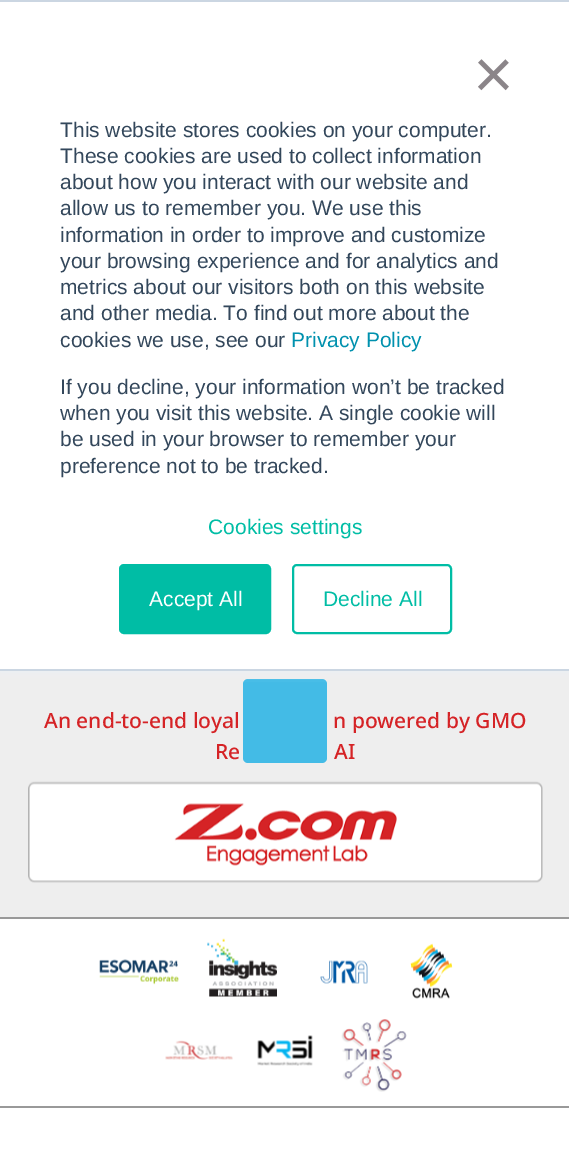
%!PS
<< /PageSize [569 1158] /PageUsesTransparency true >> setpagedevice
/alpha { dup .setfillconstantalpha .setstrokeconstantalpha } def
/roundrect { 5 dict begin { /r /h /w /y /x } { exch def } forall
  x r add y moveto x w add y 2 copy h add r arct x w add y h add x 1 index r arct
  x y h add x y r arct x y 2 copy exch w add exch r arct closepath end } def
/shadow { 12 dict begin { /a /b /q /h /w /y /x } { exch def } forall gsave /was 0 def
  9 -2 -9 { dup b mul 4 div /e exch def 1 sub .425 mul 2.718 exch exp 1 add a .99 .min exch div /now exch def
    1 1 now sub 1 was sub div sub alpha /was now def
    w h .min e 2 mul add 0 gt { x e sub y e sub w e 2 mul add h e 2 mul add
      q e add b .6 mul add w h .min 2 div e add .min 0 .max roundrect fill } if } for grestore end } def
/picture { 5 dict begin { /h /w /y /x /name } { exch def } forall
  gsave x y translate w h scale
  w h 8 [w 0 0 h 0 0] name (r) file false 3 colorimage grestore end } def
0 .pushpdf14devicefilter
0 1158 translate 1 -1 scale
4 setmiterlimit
1 setgray
0 0 569 1158 rectfill
0.933 setgray
0 671 569 246 rectfill
0.263 0.733 0.902 setrgbcolor
243 679 84 84 5 roundrect fill
0.918 0.941 0.965 setrgbcolor
0 2 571 670 0 4.5 1 shadow
1 setgray
0 2 569 667 rectfill
0.796 0.839 0.886 setrgbcolor
0 0 569 2 rectfill
0 669 569 2 rectfill
/LiberationSans-Regular [70 0 0 -70 0 0] selectfont
0.545 0.522 0.537 setrgbcolor
473 98 moveto (×) show
/LiberationSans-Regular [21 0 0 -21 0 0] selectfont
0.2 0.278 0.357 setrgbcolor
60 137 moveto (This website stores cookies on your computer.) show
60 163 moveto (These cookies are used to collect information) show
60 189 moveto (about how you interact with our website and) show
60 215 moveto (allow us to remember you. We use this) show
60 242 moveto (information in order to improve and customize) show
60 268 moveto (your browsing experience and for analytics and) show
60 294 moveto (metrics about our visitors both on this website) show
60 320 moveto (and other media. To find out more about the) show
60 347 moveto (cookies we use, see our) show
0 0.569 0.682 setrgbcolor
291 347 moveto (Privacy Policy) show
0.2 0.278 0.357 setrgbcolor
60 394 moveto (If you decline, your information won’t be tracked) show
60 420 moveto (when you visit this website. A single cookie will) show
60 446 moveto (be used in your browser to remember your) show
60 473 moveto (preference not to be tracked.) show
0 0.741 0.647 setrgbcolor
208 534 moveto (Cookies settings) show
120 565 150 68 4 roundrect gsave fill grestore
2 setlinewidth
stroke
1 setgray
149 606 moveto (Accept All) show
0 0.741 0.647 setrgbcolor
293 565 158 68 4 roundrect stroke
323 606 moveto (Decline All) show
/NotoSans-Medium [21 0 0 -21 0 0] selectfont
0.835 0.137 0.149 setrgbcolor
44 728 moveto (An end-to-end loyal) show
333 728 moveto (n powered by GMO) show
215 759 moveto (Re) show
334 759 moveto (AI) show
(img1.rgb) 28 781 515 102 picture
0.6 setgray
0 917 569 2 rectfill
(img2.rgb) 99 959 80 26 picture
(img3.rgb) 207 938 70 59 picture
(img4.rgb) 320 960 48 24 picture
(img5.rgb) 410 943 43 56 picture
(img6.rgb) 165 1040 68 20 picture
(img7.rgb) 257 1035 56 31 picture
(img8.rgb) 341 1019 66 73 picture
0 1106 569 2 rectfill
.poppdf14devicefilter showpage
